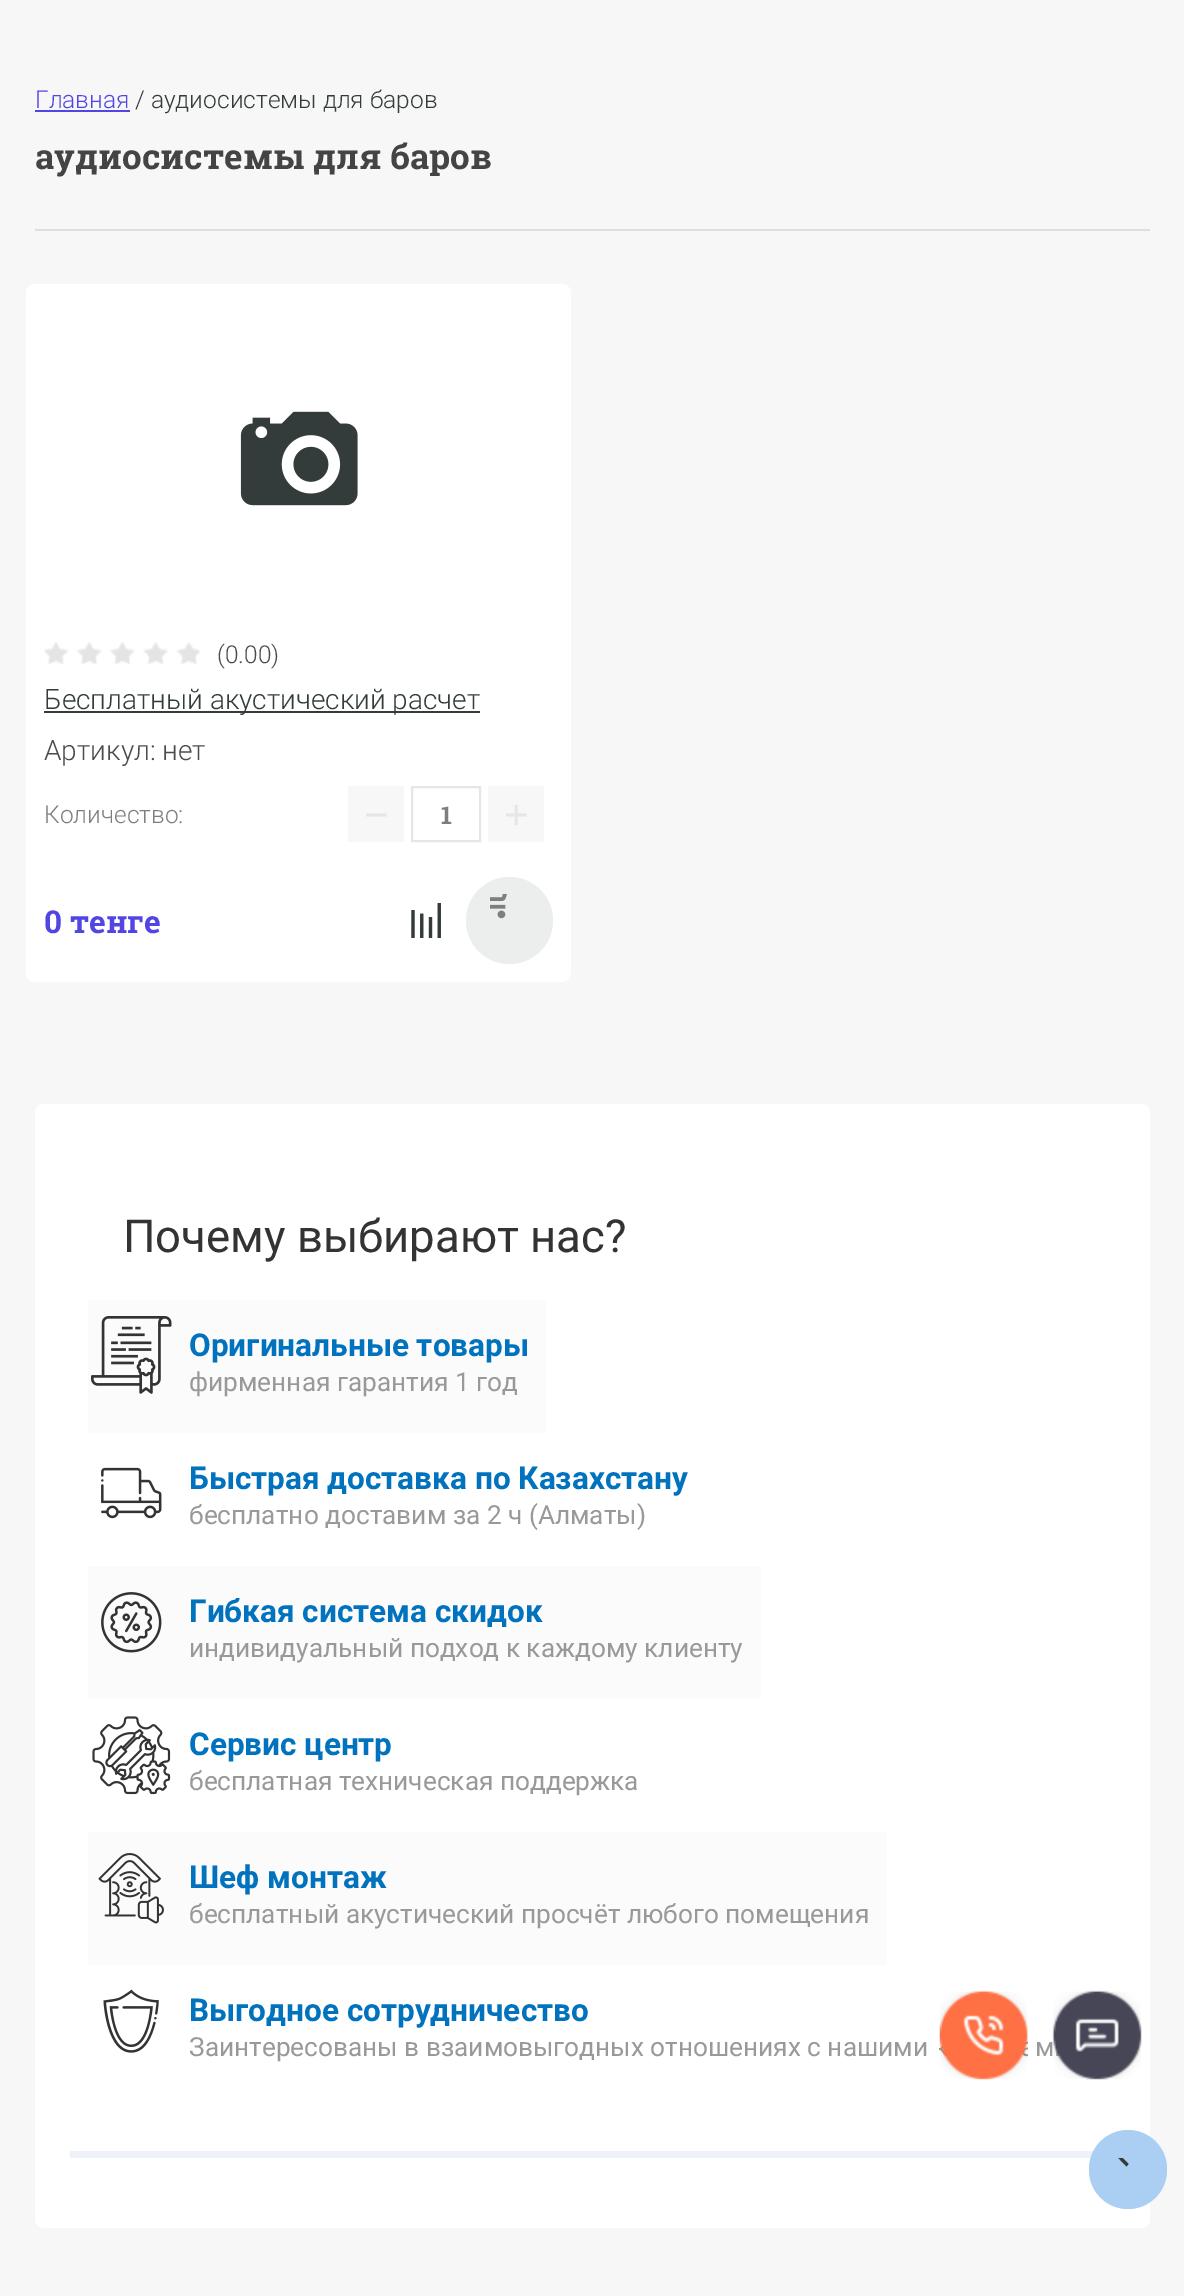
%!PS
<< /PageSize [1184 2296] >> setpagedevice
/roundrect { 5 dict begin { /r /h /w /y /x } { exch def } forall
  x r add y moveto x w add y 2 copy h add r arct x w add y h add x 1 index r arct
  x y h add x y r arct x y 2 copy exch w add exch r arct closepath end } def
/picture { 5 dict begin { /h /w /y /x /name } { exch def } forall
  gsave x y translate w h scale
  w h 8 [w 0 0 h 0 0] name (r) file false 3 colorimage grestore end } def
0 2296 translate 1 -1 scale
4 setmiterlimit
0.969 setgray
0 0 1184 2296 rectfill
/Roboto-Light [24.5 0 0 -24.5 0 0] selectfont
0.318 0.275 0.894 setrgbcolor
35 108 moveto (Главная) show
35 110 95 2 rectfill
0.2 0.231 0.231 setrgbcolor
135 108 moveto (/ аудиосистемы для баров) show
0.867 0.871 0.871 setrgbcolor
35 229 1115 2 rectfill
/RobotoSlab-Bold [35 0 0 -35 0 0] selectfont
0.267 setgray
35 169 moveto (аудиосистемы для баров) show
1 setgray
26 284 545 698 9 roundrect fill
(img1.rgb) 240 411 118 95 picture
(img2.rgb) 44 642 156 23 picture
/Roboto-Light [24.5 0 0 -24.5 0 0] selectfont
0.282 0.298 0.314 setrgbcolor
217 663 moveto (\(0.00\)) show
0.2 0.231 0.231 setrgbcolor
44 711 436 2 rectfill
/Roboto-Light [28 0 0 -28 0 0] selectfont
44 709 moveto (Бесплатный акустический расчет) show
0.282 0.298 0.314 setrgbcolor
44 760 moveto (Артикул: нет) show
/Roboto-Light [24.5 0 0 -24.5 0 0] selectfont
0.494 setgray
44 823 moveto (Количество:) show
0.969 setgray
348 786 56 56 rectfill
/LiberationSans-Regular [42 0 0 -42 0 0] selectfont
0.902 setgray
364 829 moveto (−) show
2 setlinewidth
412 787 68 54 rectstroke
/RobotoSlab-Bold [24.5 0 0 -24.5 0 0] selectfont
0.494 setgray
441 824 moveto (1) show
0.969 setgray
488 786 56 56 rectfill
/LiberationSans-Regular [42 0 0 -42 0 0] selectfont
0.902 setgray
504 829 moveto (+) show
/RobotoSlab-Bold [31.5 0 0 -31.5 0 0] selectfont
0.318 0.275 0.894 setrgbcolor
44 933 moveto (0 тенге) show
(img3.rgb) 411 903 30 35 picture
0.925 0.929 0.929 setrgbcolor
newpath 509.5 920.5 43.5 0 360 arc closepath fill
(img4.rgb) 490 894 17 25 picture
1 setgray
35 1104 1115 1124 9 roundrect fill
0.929 0.949 0.973 setrgbcolor
70 2151 1024 7 rectfill
/Roboto-Regular [45.5 0 0 -45.5 0 0] selectfont
0.2 setgray
123 1252 moveto (Почему выбирают нас?) show
0.984 setgray
88 1300 458 133 rectfill
(img5.rgb) 91 1316 81 78 picture
/Roboto-Bold [31.5 0 0 -31.5 0 0] selectfont
0 0.447 0.745 setrgbcolor
189 1356 moveto (Оригинальные товары) show
/Roboto-Regular [26.25 0 0 -26.25 0 0] selectfont
0.6 setgray
189 1391 moveto (фирменная гарантия 1 год) show
(img6.rgb) 101 1467 61 52 picture
/Roboto-Bold [31.5 0 0 -31.5 0 0] selectfont
0 0.447 0.745 setrgbcolor
189 1489 moveto (Быстрая доставка по Казахстану) show
/Roboto-Regular [26.25 0 0 -26.25 0 0] selectfont
0.6 setgray
189 1524 moveto (бесплатно доставим за 2 ч \(Алматы\)) show
0.984 setgray
88 1566 673 133 rectfill
(img7.rgb) 101 1592 61 61 picture
/Roboto-Bold [31.5 0 0 -31.5 0 0] selectfont
0 0.447 0.745 setrgbcolor
189 1622 moveto (Гибкая система скидок) show
/Roboto-Regular [26.25 0 0 -26.25 0 0] selectfont
0.6 setgray
189 1657 moveto (индивидуальный подход к каждому клиенту) show
(img8.rgb) 92 1716 79 79 picture
/Roboto-Bold [31.5 0 0 -31.5 0 0] selectfont
0 0.447 0.745 setrgbcolor
189 1755 moveto (Сервис центр) show
/Roboto-Regular [26.25 0 0 -26.25 0 0] selectfont
0.6 setgray
189 1790 moveto (бесплатная техническая поддержка) show
0.984 setgray
88 1832 799 133 rectfill
(img9.rgb) 98 1853 66 71 picture
/Roboto-Bold [31.5 0 0 -31.5 0 0] selectfont
0 0.447 0.745 setrgbcolor
189 1888 moveto (Шеф монтаж) show
/Roboto-Regular [26.25 0 0 -26.25 0 0] selectfont
0.6 setgray
189 1923 moveto (бесплатный акустический просчёт любого помещения) show
(img10.rgb) 103 1989 56 64 picture
/Roboto-Bold [31.5 0 0 -31.5 0 0] selectfont
0 0.447 0.745 setrgbcolor
189 2021 moveto (Выгодное сотрудничество) show
/Roboto-Regular [26.25 0 0 -26.25 0 0] selectfont
0.6 setgray
189 2056 moveto (Заинтересованы в взаимовыгодных отношениях с нашими) show
1035 2056 moveto (м) show
0.667 0.812 0.949 setrgbcolor
1089 2130 78 79 39 roundrect fill
gsave
1113 2158 32 24 rectclip
0.2 0.231 0.231 setrgbcolor
newpath 1100.5 2166.5 moveto 1098.5 2164.5 lineto 1114 2149 lineto 1128.5 2164 lineto 1126.5 2166.5 lineto 1114 2153.5 lineto closepath fill
grestore
(img11.rgb) 939 1990 89 90 picture
(img12.rgb) 1052 1990 90 90 picture
showpage
